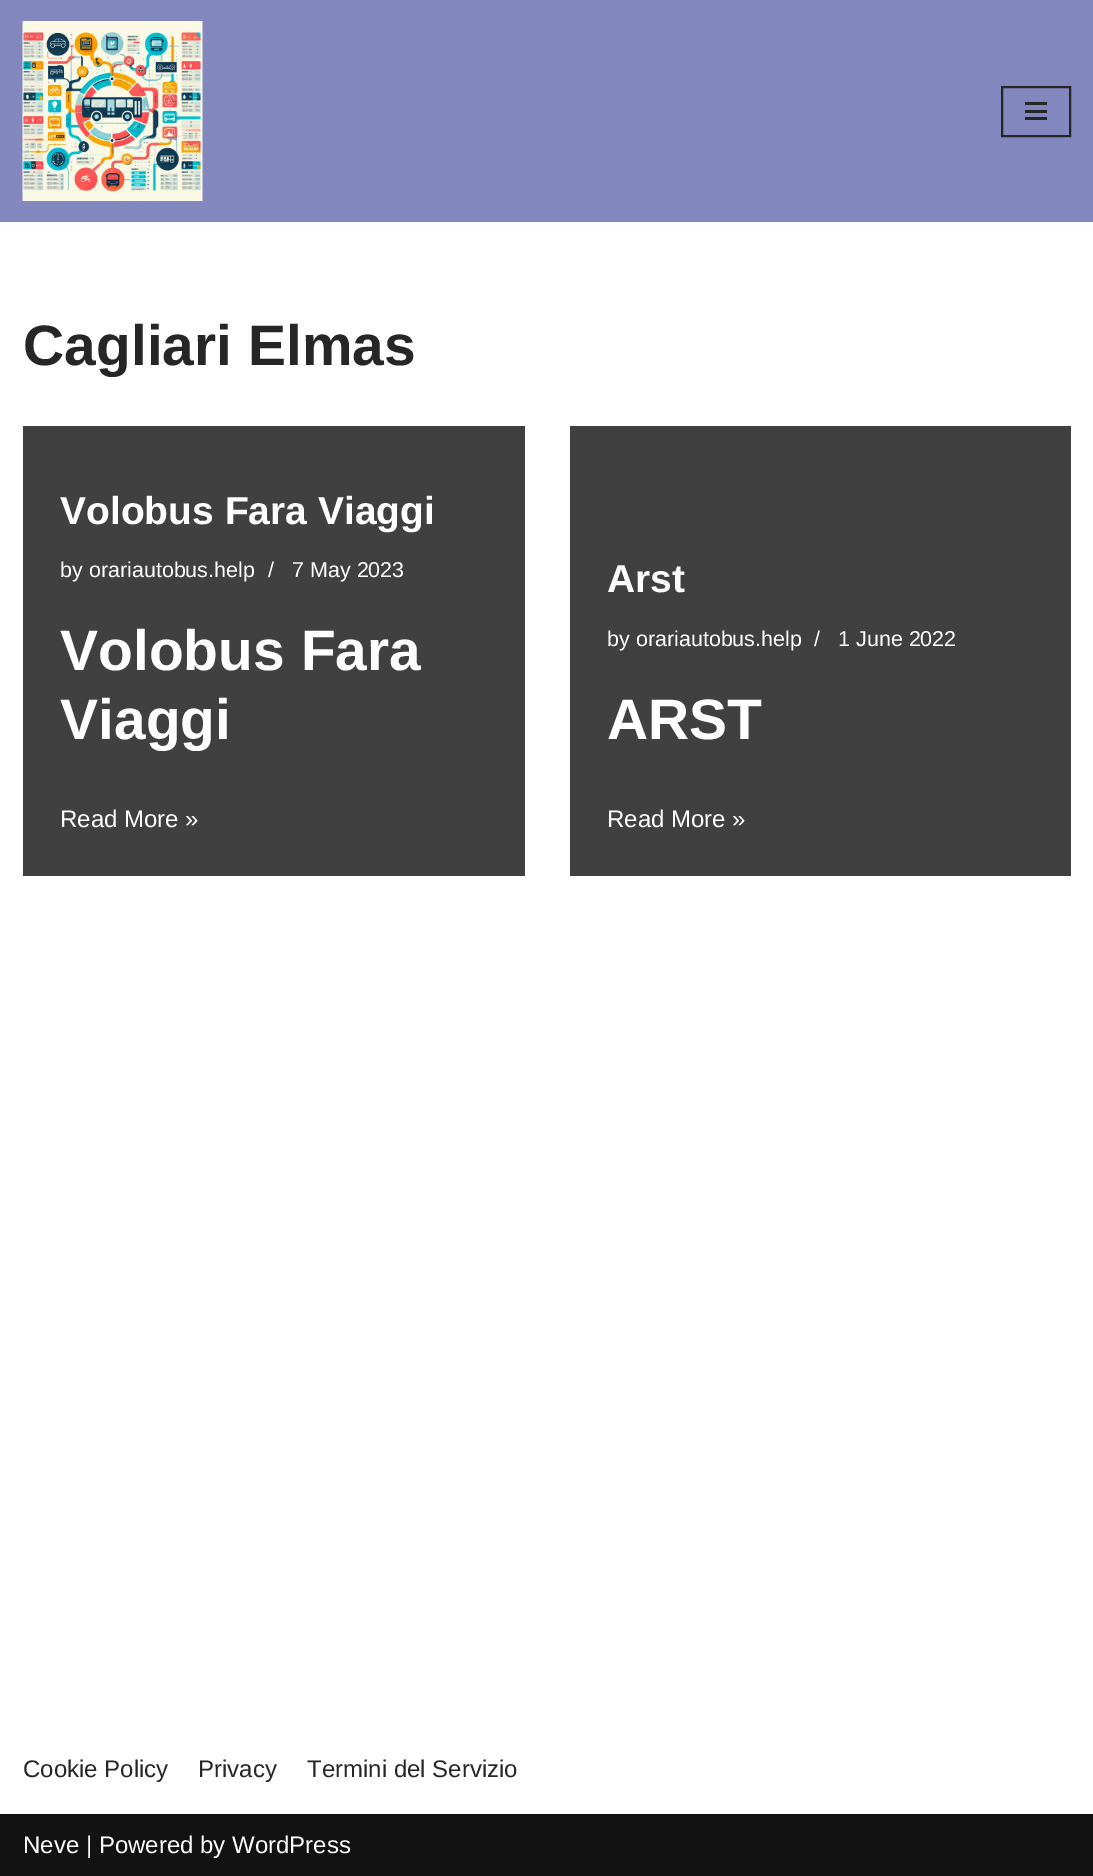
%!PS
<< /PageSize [1093 1876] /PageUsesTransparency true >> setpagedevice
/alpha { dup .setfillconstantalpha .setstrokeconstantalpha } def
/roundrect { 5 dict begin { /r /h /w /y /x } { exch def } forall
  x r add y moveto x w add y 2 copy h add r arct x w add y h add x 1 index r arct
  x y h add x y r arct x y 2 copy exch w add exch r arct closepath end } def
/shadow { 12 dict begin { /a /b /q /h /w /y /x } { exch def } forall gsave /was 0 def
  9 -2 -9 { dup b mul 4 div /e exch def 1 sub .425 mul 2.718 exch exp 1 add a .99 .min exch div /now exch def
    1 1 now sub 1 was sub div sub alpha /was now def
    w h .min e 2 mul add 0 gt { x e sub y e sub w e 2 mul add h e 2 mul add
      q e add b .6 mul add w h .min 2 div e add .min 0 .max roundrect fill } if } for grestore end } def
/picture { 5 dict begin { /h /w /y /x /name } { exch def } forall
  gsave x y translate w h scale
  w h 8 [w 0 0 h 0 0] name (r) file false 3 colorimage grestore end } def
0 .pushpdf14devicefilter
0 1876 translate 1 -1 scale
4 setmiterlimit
1 setgray
0 0 1093 1876 rectfill
0 setgray
0 -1 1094 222 0 2 0.1 shadow
0.51 0.529 0.741 setrgbcolor
0 0 1093 222 rectfill
(img1.rgb) 22 21 181 180 picture
0.153 0.149 0.149 setrgbcolor
2 setlinewidth
1002 87 68 49 rectstroke
1025 102 22 3 rectfill
1025 110 22 3 rectfill
1025 117 22 3 rectfill
/LiberationSans-Bold [57 0 0 -57 0 0] selectfont
23 365 moveto (Cagliari Elmas) show
0.251 setgray
23 426 502 450 rectfill
/LiberationSans-Bold [39 0 0 -39 0 0] selectfont
1 setgray
60 524 moveto (Volobus Fara Viaggi) show
/LiberationSans-Regular [21.5 0 0 -21.5 0 0] selectfont
60 577 moveto (by orariautobus.help) show
268 577 moveto (/) show
292 577 moveto (7 May 2023) show
/LiberationSans-Bold [57 0 0 -57 0 0] selectfont
60 670 moveto (Volobus Fara) show
60 739 moveto (Viaggi) show
/LiberationSans-Regular [24 0 0 -24 0 0] selectfont
60 827 moveto (Read More ») show
0.251 setgray
570 426 501 450 rectfill
/LiberationSans-Bold [39 0 0 -39 0 0] selectfont
1 setgray
607 592 moveto (Arst) show
/LiberationSans-Regular [21.5 0 0 -21.5 0 0] selectfont
607 646 moveto (by orariautobus.help) show
814 646 moveto (/) show
838 646 moveto (1 June 2022) show
/LiberationSans-Bold [57 0 0 -57 0 0] selectfont
607 739 moveto (ARST) show
/LiberationSans-Regular [24 0 0 -24 0 0] selectfont
607 827 moveto (Read More ») show
0.153 0.149 0.149 setrgbcolor
23 1777 moveto (Cookie Policy) show
198 1777 moveto (Privacy) show
307 1777 moveto (Termini del Servizio) show
0.071 setgray
0 1814 1093 62 rectfill
1 setgray
23 1853 moveto (Neve | Powered by WordPress) show
.poppdf14devicefilter showpage
